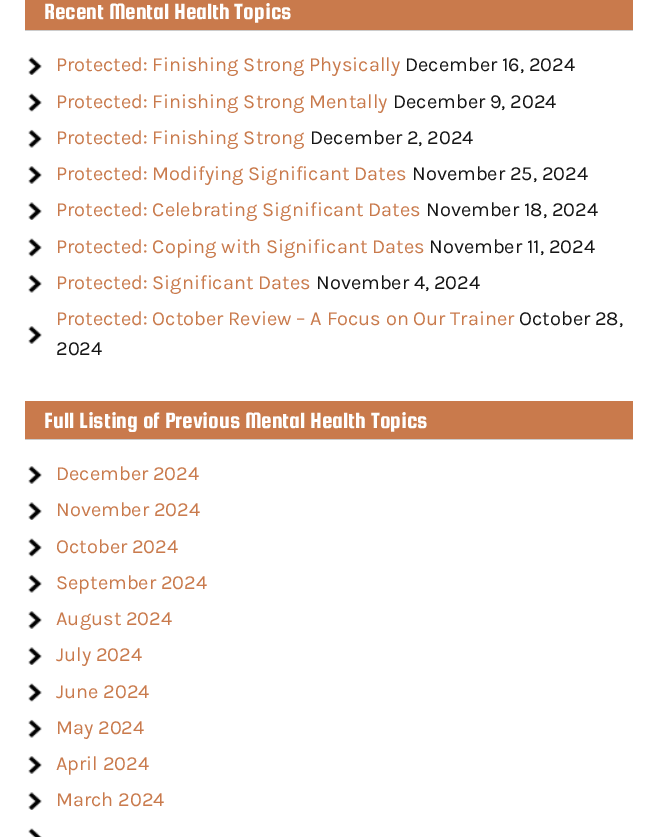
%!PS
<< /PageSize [657 837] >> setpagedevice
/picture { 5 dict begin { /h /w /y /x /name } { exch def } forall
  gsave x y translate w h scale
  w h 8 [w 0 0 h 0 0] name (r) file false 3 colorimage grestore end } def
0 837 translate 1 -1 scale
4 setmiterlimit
1 setgray
0 0 657 837 rectfill
0.788 0.478 0.298 setrgbcolor
25 0 608 30 rectfill
0.8 setgray
25 30 608 1 rectfill
/SquadaOne-Regular [23.75 0 0 -23.75 0 0] selectfont
1 setgray
44 19 moveto (Recent Mental Health Topics) show
(img1.rgb) 28 57 14 18 picture
/Karla-Regular [20 0 0 -20 0 0] selectfont
0.788 0.478 0.298 setrgbcolor
56 71 moveto (Protected: Finishing Strong Physically) show
0.082 setgray
405 71 moveto (December 16, 2024) show
(img2.rgb) 28 93 14 19 picture
0.788 0.478 0.298 setrgbcolor
56 108 moveto (Protected: Finishing Strong Mentally) show
0.082 setgray
393 108 moveto (December 9, 2024) show
(img3.rgb) 28 129 14 19 picture
0.788 0.478 0.298 setrgbcolor
56 144 moveto (Protected: Finishing Strong) show
0.082 setgray
310 144 moveto (December 2, 2024) show
(img4.rgb) 28 166 14 18 picture
0.788 0.478 0.298 setrgbcolor
56 180 moveto (Protected: Modifying Significant Dates) show
0.082 setgray
412 180 moveto (November 25, 2024) show
(img5.rgb) 28 202 14 18 picture
0.788 0.478 0.298 setrgbcolor
56 216 moveto (Protected: Celebrating Significant Dates) show
0.082 setgray
426 216 moveto (November 18, 2024) show
(img2.rgb) 28 238 14 19 picture
0.788 0.478 0.298 setrgbcolor
56 253 moveto (Protected: Coping with Significant Dates) show
0.082 setgray
429 253 moveto (November 11, 2024) show
(img3.rgb) 28 274 14 19 picture
0.788 0.478 0.298 setrgbcolor
56 289 moveto (Protected: Significant Dates) show
0.082 setgray
316 289 moveto (November 4, 2024) show
(img4.rgb) 28 326 14 18 picture
0.788 0.478 0.298 setrgbcolor
56 325 moveto (Protected: October Review – A Focus on Our Trainer) show
0.082 setgray
519 325 moveto (October 28,) show
56 355 moveto (2024) show
0.788 0.478 0.298 setrgbcolor
25 401 608 38 rectfill
0.8 setgray
25 439 608 1 rectfill
/SquadaOne-Regular [23.75 0 0 -23.75 0 0] selectfont
1 setgray
44 428 moveto (Full Listing of Previous Mental Health Topics) show
(img4.rgb) 28 466 14 18 picture
/Karla-Regular [20 0 0 -20 0 0] selectfont
0.788 0.478 0.298 setrgbcolor
56 480 moveto (December 2024) show
(img5.rgb) 28 502 14 18 picture
56 516 moveto (November 2024) show
(img2.rgb) 28 538 14 19 picture
56 553 moveto (October 2024) show
(img3.rgb) 28 574 14 19 picture
56 589 moveto (September 2024) show
(img4.rgb) 28 611 14 18 picture
56 625 moveto (August 2024) show
(img5.rgb) 28 647 14 18 picture
56 661 moveto (July 2024) show
(img2.rgb) 28 683 14 19 picture
56 698 moveto (June 2024) show
(img3.rgb) 28 719 14 19 picture
56 734 moveto (May 2024) show
(img4.rgb) 28 756 14 18 picture
56 770 moveto (April 2024) show
(img5.rgb) 28 792 14 18 picture
56 806 moveto (March 2024) show
(img6.rgb) 28 828 14 9 picture
showpage
